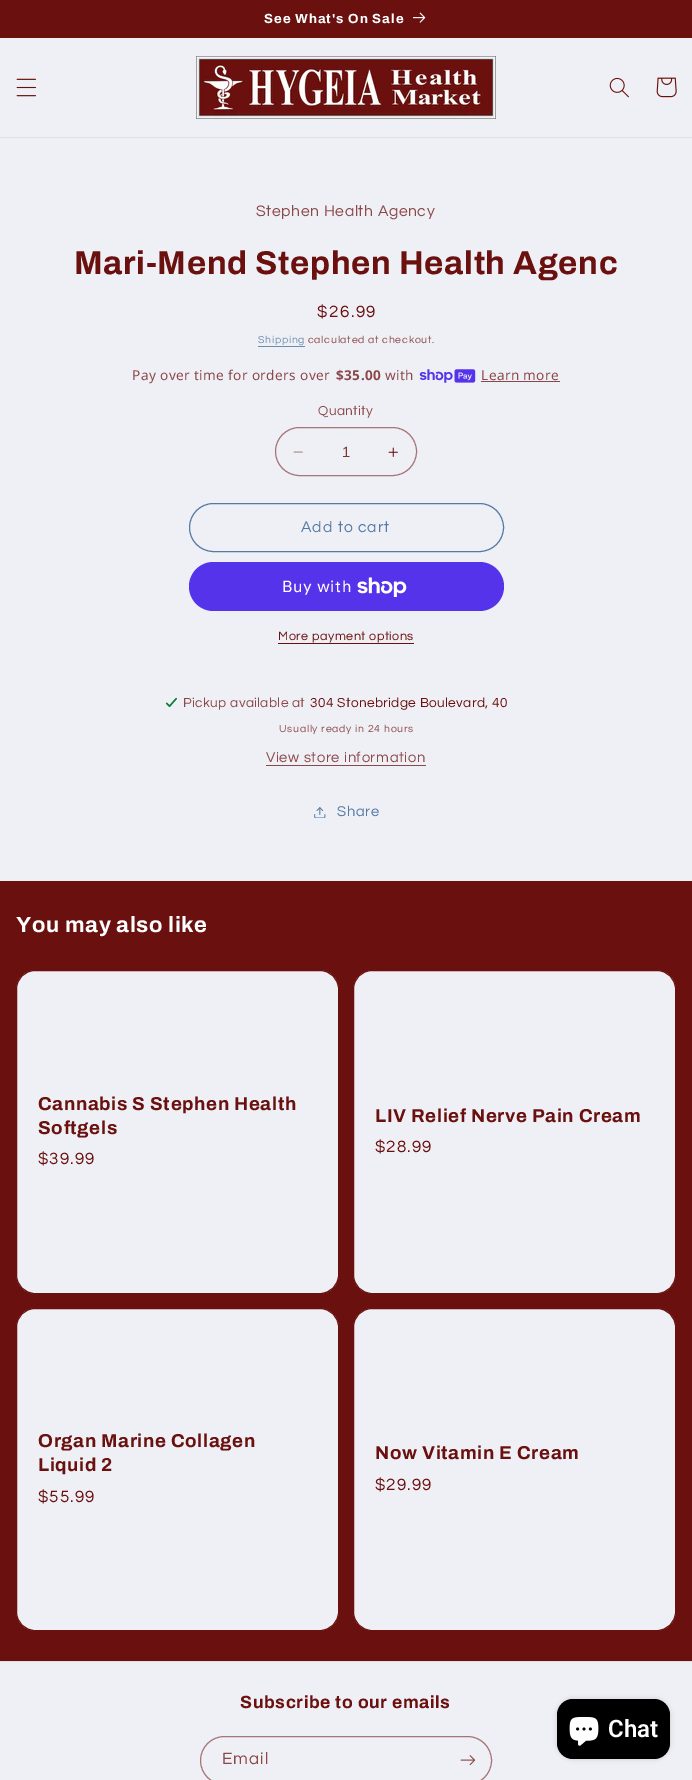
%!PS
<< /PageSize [692 1780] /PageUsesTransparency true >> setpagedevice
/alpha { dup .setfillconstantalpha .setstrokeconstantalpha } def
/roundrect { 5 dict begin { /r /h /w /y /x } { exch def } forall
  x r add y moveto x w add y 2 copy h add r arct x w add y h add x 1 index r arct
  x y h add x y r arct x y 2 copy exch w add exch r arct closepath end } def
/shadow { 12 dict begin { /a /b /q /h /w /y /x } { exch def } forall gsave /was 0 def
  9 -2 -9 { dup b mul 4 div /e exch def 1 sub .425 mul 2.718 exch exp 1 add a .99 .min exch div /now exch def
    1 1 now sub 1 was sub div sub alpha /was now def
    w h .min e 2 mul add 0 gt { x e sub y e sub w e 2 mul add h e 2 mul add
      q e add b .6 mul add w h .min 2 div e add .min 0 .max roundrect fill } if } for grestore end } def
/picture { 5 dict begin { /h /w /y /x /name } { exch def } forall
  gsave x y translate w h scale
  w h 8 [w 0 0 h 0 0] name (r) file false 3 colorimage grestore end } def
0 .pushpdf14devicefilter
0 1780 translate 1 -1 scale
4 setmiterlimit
0.937 0.941 0.961 setrgbcolor
0 0 692 1780 rectfill
0.416 0.063 0.059 setrgbcolor
0 0 692 38 rectfill
/Archivo-Bold [13.25 0 0 -13.25 0 0] selectfont
1 setgray
264 23 moveto 1 0 (See What's On Sale) ashow
(img1.rgb) 413 12 13 11 picture
0.894 0.871 0.89 setrgbcolor
0 137 692 1 rectfill
(img2.rgb) 16 78 20 19 picture
(img3.rgb) 196 56 300 63 picture
(img4.rgb) 609 77 20 21 picture
(img5.rgb) 656 77 21 21 picture
/Questrial-Regular [15.75 0 0 -15.75 0 0] selectfont
0.545 0.282 0.286 setrgbcolor
256 216 moveto 0.6 0 (Stephen Health Agency) ashow
/Archivo-Bold [33 0 0 -33 0 0] selectfont
0.416 0.063 0.059 setrgbcolor
74 274 moveto 0.65 0 (Mari-Mend Stephen Health Agenc) ashow
/Questrial-Regular [17 0 0 -17 0 0] selectfont
317 317 moveto 1.5 0 ($26.99) ashow
/Questrial-Regular [10.5 0 0 -10.5 0 0] selectfont
0.42 0.549 0.694 setrgbcolor
258 343 moveto 0.75 0 (Shipping) ashow
258 346 47 1 rectfill
0.545 0.282 0.286 setrgbcolor
308 343 moveto 0.75 0 (calculated at checkout.) ashow
/NotoSans-Regular [13.6 0 0 -13.6 0 0] selectfont
132 380 moveto 0.4 0 (Pay over time for orders over) ashow
/NotoSans-Bold [13.6 0 0 -13.6 0 0] selectfont
336 380 moveto 0.4 0 ($35.00) ashow
/NotoSans-Regular [13.6 0 0 -13.6 0 0] selectfont
385 380 moveto 0.4 0 (with) ashow
(img6.rgb) 419 369 57 14 picture
481 380 moveto 0.4 0 (Learn more) ashow
481 381 79 1 rectfill
/Questrial-Regular [13.6 0 0 -13.6 0 0] selectfont
318 415 moveto 0.4 0 (Quantity) ashow
(img7.rgb) 293 451 10 2 picture
(img8.rgb) 388 447 10 10 picture
0.651 0.459 0.467 setrgbcolor
275.5 427.5 141 48 24 roundrect stroke
/LiberationSans-Regular [14.75 0 0 -14.75 0 0] selectfont
0.494 0.196 0.196 setrgbcolor
342 457 moveto (1) show
0.329 0.478 0.647 setrgbcolor
189.5 503.5 314 48 24 roundrect stroke
/Questrial-Regular [15.75 0 0 -15.75 0 0] selectfont
301 532 moveto 1 0 (Add to cart) ashow
0.329 0.2 0.922 setrgbcolor
189 562 315 49 24.5 roundrect fill
/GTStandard-Regular [16 0 0 -16 0 0] selectfont
1 setgray
282 592 moveto 0.6 0 (Buy with) ashow
(img9.rgb) 357 577 50 20 picture
/Questrial-Regular [12.6 0 0 -12.6 0 0] selectfont
0.416 0.063 0.059 setrgbcolor
278 640 moveto 0.5 0 (More payment options) ashow
278 643 136 1 rectfill
(img10.rgb) 165 697 13 11 picture
/Questrial-Regular [13.6 0 0 -13.6 0 0] selectfont
0.545 0.282 0.286 setrgbcolor
183 707 moveto 0.4 0 (Pickup available at) ashow
0.416 0.063 0.059 setrgbcolor
310 707 moveto 0.4 0 (304 Stonebridge Boulevard, 40) ashow
/Questrial-Regular [10.5 0 0 -10.5 0 0] selectfont
0.545 0.282 0.286 setrgbcolor
279 732 moveto 0.75 0 (Usually ready in 24 hours) ashow
/Questrial-Regular [14.75 0 0 -14.75 0 0] selectfont
266 762 moveto 0.6 0 (View store information) ashow
266 765 160 1 rectfill
(img11.rgb) 314 807 12 11 picture
0.329 0.478 0.647 setrgbcolor
337 816 moveto 0.6 0 (Share) ashow
0.416 0.063 0.059 setrgbcolor
0 881 692 780 rectfill
/Archivo-Bold [22 0 0 -22 0 0] selectfont
1 setgray
16 932 moveto 0.65 0 (You may also like) ashow
0.937 0.941 0.961 setrgbcolor
16.5 970.5 322 323 18.5 roundrect gsave fill grestore
0.416 0.063 0.059 setrgbcolor
stroke
/Archivo-Bold [18.75 0 0 -18.75 0 0] selectfont
38 1110 moveto 0.65 0 (Cannabis S Stephen Health) ashow
38 1134 moveto 0.65 0 (Softgels) ashow
/Questrial-Regular [17 0 0 -17 0 0] selectfont
38 1164 moveto 1 0 ($39.99) ashow
0.937 0.941 0.961 setrgbcolor
353.5 970.5 322 323 18.5 roundrect gsave fill grestore
0.416 0.063 0.059 setrgbcolor
stroke
/Archivo-Bold [18.75 0 0 -18.75 0 0] selectfont
375 1122 moveto 0.65 0 (LIV Relief Nerve Pain Cream) ashow
/Questrial-Regular [17 0 0 -17 0 0] selectfont
375 1152 moveto 1 0 ($28.99) ashow
0.937 0.941 0.961 setrgbcolor
16.5 1308.5 322 322 18.5 roundrect gsave fill grestore
0.416 0.063 0.059 setrgbcolor
stroke
/Archivo-Bold [18.75 0 0 -18.75 0 0] selectfont
38 1447 moveto 0.65 0 (Organ Marine Collagen) ashow
38 1471 moveto 0.65 0 (Liquid 2) ashow
/Questrial-Regular [17 0 0 -17 0 0] selectfont
38 1502 moveto 1 0 ($55.99) ashow
0.937 0.941 0.961 setrgbcolor
353.5 1308.5 322 322 18.5 roundrect gsave fill grestore
0.416 0.063 0.059 setrgbcolor
stroke
/Archivo-Bold [18.75 0 0 -18.75 0 0] selectfont
375 1459 moveto 0.65 0 (Now Vitamin E Cream) ashow
/Questrial-Regular [17 0 0 -17 0 0] selectfont
375 1490 moveto 1 0 ($29.99) ashow
0.894 0.871 0.89 setrgbcolor
0 1661 692 1 rectfill
/Archivo-Bold [17.6 0 0 -17.6 0 0] selectfont
0.416 0.063 0.059 setrgbcolor
240 1708 moveto 0.65 0 (Subscribe to our emails) ashow
0.651 0.459 0.467 setrgbcolor
200.5 1736.5 291 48 24 roundrect stroke
/Questrial-Regular [17 0 0 -17 0 0] selectfont
0.545 0.282 0.286 setrgbcolor
222 1764 moveto 1 0 (Email) ashow
(img12.rgb) 460 1755 15 11 picture
0 setgray
557 1699 113 60 16 2.5 0.15 shadow
557 1699 113 60 16 roundrect fill
(img13.rgb) 569 1717 30 29 picture
/Roboto-SemiBold [24 0 0 -24 0 0] selectfont
1 setgray
608 1737 moveto (Chat) show
.poppdf14devicefilter showpage
